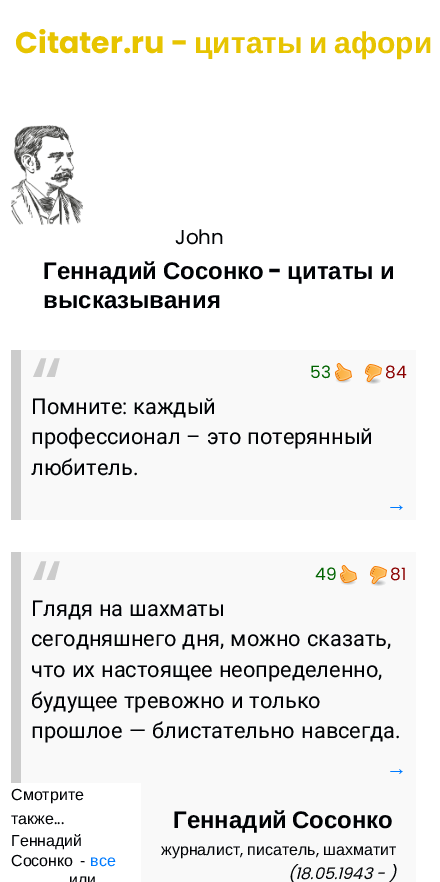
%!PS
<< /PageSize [440 882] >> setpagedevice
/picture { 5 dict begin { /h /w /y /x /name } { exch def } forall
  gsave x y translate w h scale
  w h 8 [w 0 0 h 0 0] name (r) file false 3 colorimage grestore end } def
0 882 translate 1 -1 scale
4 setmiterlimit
1 setgray
0 0 440 882 rectfill
/Poppins-Bold [30 0 0 -30 0 0] selectfont
0.906 0.769 0 setrgbcolor
15 53 moveto (Citater.ru -) show
/LiberationSans-Bold [30 0 0 -30 0 0] selectfont
194 53 moveto (цитаты) show
309 53 moveto (и) show
334 53 moveto (афори) show
(img1.rgb) 11 125 72 100 picture
/Poppins-Regular [20 0 0 -20 0 0] selectfont
0 0.008 0.02 setrgbcolor
175 244 moveto (John) show
/LiberationSans-Bold [24 0 0 -24 0 0] selectfont
43 279 moveto -1 0 32 (Геннадий Сосонко) widthshow
/Poppins-Bold [24 0 0 -24 0 0] selectfont
268 279 moveto (-) show
/LiberationSans-Bold [24 0 0 -24 0 0] selectfont
287 279 moveto -1 0 32 (цитаты и) widthshow
43 308 moveto (высказывания) show
0.976 setgray
21 350 395 170 rectfill
0.8 setgray
11 350 10 170 rectfill
/Poppins-Regular [83 0 0 -83 0 0] selectfont
31 416 moveto (“) show
/Poppins-Regular [17 0 0 -17 0 0] selectfont
0 0.392 0 setrgbcolor
310 378 moveto (53) show
(img2.rgb) 334 363 18 20 picture
(img3.rgb) 364 364 18 20 picture
0.545 0 0 setrgbcolor
385 378 moveto (84) show
/Roboto-Regular [21.8 0 0 -21.8 0 0] selectfont
0 0.008 0.02 setrgbcolor
31 414 moveto (Помните: каждый) show
31 444 moveto 0.5 0 32 (профессионал – это потерянный) widthshow
31 475 moveto (любитель.) show
/LiberationSerif-Regular [21 0 0 -21 0 0] selectfont
0 0.482 1 setrgbcolor
386 511 moveto (→) show
0.976 setgray
21 552 395 231 rectfill
0.8 setgray
11 552 10 231 rectfill
/Poppins-Regular [83 0 0 -83 0 0] selectfont
31 619 moveto (“) show
/Poppins-Regular [17 0 0 -17 0 0] selectfont
0 0.392 0 setrgbcolor
315 580 moveto (49) show
(img2.rgb) 339 565 18 20 picture
(img3.rgb) 369 566 18 20 picture
0.545 0 0 setrgbcolor
390 580 moveto (81) show
/Roboto-Regular [21.8 0 0 -21.8 0 0] selectfont
0 0.008 0.02 setrgbcolor
31 616 moveto 0.5 0 32 (Глядя на шахматы) widthshow
31 646 moveto 0.5 0 32 (сегодняшнего дня, можно сказать,) widthshow
31 677 moveto 0.5 0 32 (что их настоящее неопределенно,) widthshow
31 708 moveto 0.5 0 32 (будущее тревожно и только) widthshow
31 738 moveto 1 0 32 (прошлое — блистательно навсегда.) widthshow
/LiberationSerif-Regular [21 0 0 -21 0 0] selectfont
0 0.482 1 setrgbcolor
386 775 moveto (→) show
/LiberationSans-Regular [16 0 0 -16 0 0] selectfont
0 0.008 0.02 setrgbcolor
11 800 moveto (Смотрите) show
11 824 moveto (также) show
/Poppins-Regular [16 0 0 -16 0 0] selectfont
54 824 moveto (...) show
0.976 setgray
141 783 275 99 rectfill
/LiberationSans-Bold [24 0 0 -24 0 0] selectfont
0 0.008 0.02 setrgbcolor
173 828 moveto -2 0 32 (Геннадий Сосонко) widthshow
/LiberationSans-Regular [16 0 0 -16 0 0] selectfont
161 855 moveto (журналист) show
/Poppins-Regular [16 0 0 -16 0 0] selectfont
240 855 moveto (,) show
/LiberationSans-Regular [16 0 0 -16 0 0] selectfont
247 855 moveto (писатель) show
/Poppins-Regular [16 0 0 -16 0 0] selectfont
316 855 moveto (,) show
/LiberationSans-Regular [16 0 0 -16 0 0] selectfont
323 855 moveto (шахматит) show
/Poppins-Italic [16 0 0 -16 0 0] selectfont
288 879 moveto (\(18.05.1943 - \)) show
/LiberationSans-Regular [16 0 0 -16 0 0] selectfont
11 846 moveto (Геннадий) show
11 866 moveto 2 0 32 (Сосонко -) widthshow
0 0.482 1 setrgbcolor
90 866 moveto (все) show
0 0.008 0.02 setrgbcolor
69 885 moveto (или) show
showpage
